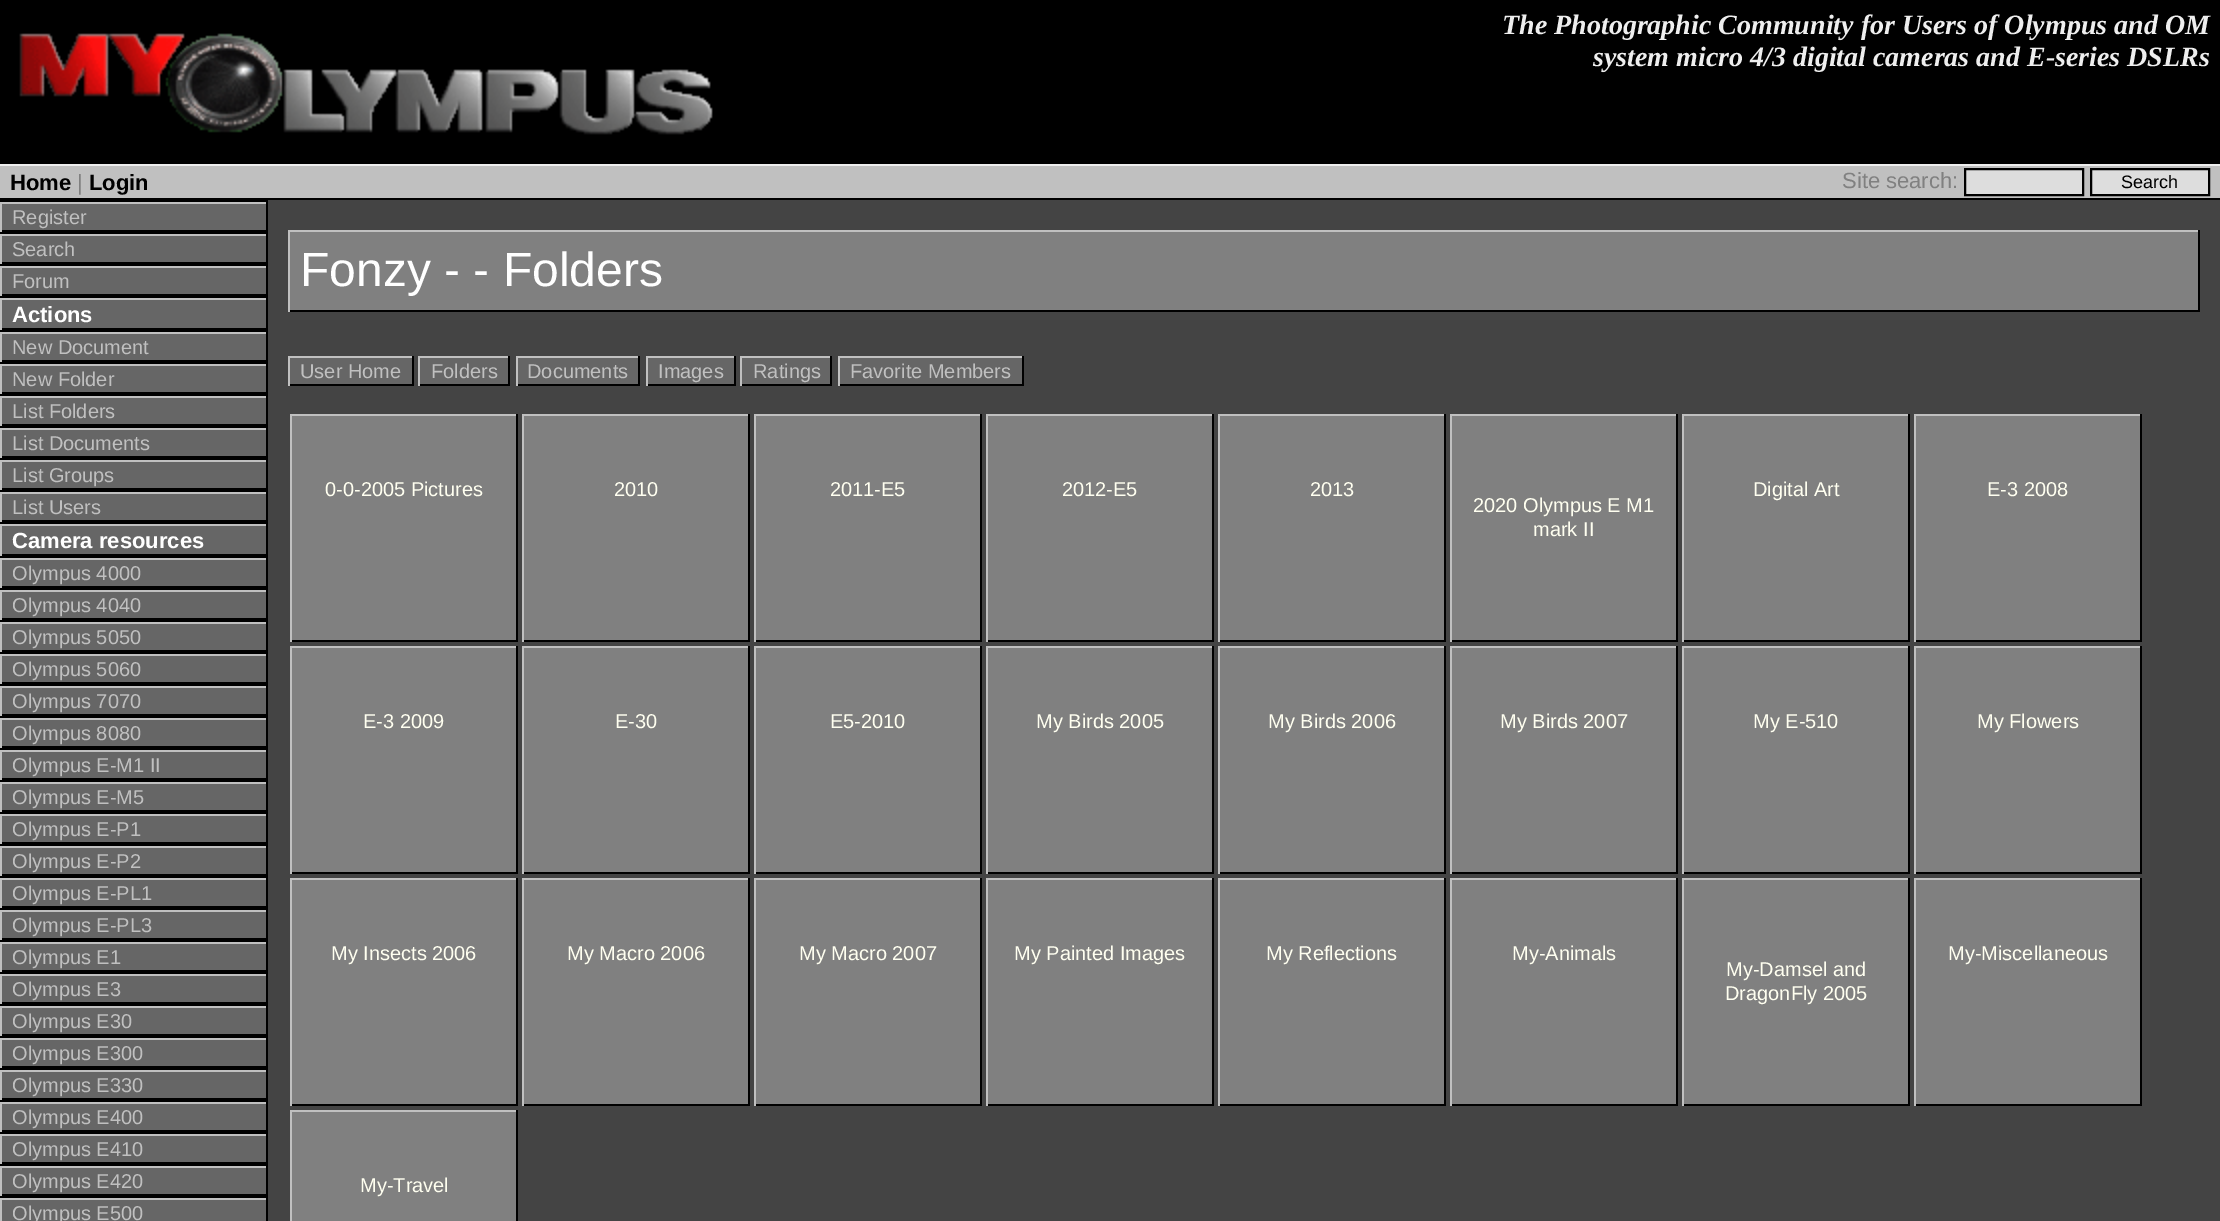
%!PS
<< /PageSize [2220 1221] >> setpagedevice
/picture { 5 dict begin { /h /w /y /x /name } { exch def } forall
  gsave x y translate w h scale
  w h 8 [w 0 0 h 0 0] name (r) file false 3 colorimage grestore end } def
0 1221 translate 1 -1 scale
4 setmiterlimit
0.267 setgray
0 0 2220 1221 rectfill
0 setgray
0 0 2220 164 rectfill
(img1.rgb) 19 33 694 102 picture
/LiberationSerif-BoldItalic [28 0 0 -28 0 0] selectfont
0.933 setgray
1502 34 moveto (The Photographic Community for Users of Olympus and OM) show
1593 66 moveto (system micro 4/3 digital cameras and E-series DSLRs) show
0.753 setgray
0 166 2220 32 rectfill
0.933 setgray
0 164 2220 2 rectfill
0 setgray
0 198 2220 2 rectfill
/LiberationSans-Bold [22 0 0 -22 0 0] selectfont
10 190 moveto (Home) show
/LiberationSans-Regular [22 0 0 -22 0 0] selectfont
0.502 setgray
77 190 moveto (|) show
/LiberationSans-Bold [22 0 0 -22 0 0] selectfont
0 setgray
89 190 moveto (Login) show
/LiberationSans-Regular [22 0 0 -22 0 0] selectfont
0.502 setgray
1842 188 moveto (Site search:) show
0.867 setgray
newpath 1965 169 moveto 2083 169 lineto 2083 195 lineto 1965 195 lineto closepath gsave fill grestore
0 setgray
2 setlinewidth
stroke
0.867 setgray
newpath 2091 169 moveto 2209 169 lineto 2209 195 lineto 2091 195 lineto closepath gsave fill grestore
0 setgray
stroke
/LiberationSans-Regular [18 0 0 -18 0 0] selectfont
2121 188 moveto (Search) show
0 200 268 998 rectfill
0.4 setgray
2 204 264 26 rectfill
0.753 setgray
0 202 268 2 rectfill
0 setgray
266 202 2 2 rectfill
0.753 setgray
0 202 2 30 rectfill
/LiberationSans-Regular [20 0 0 -20 0 0] selectfont
12 224 moveto (Register) show
0.4 setgray
2 236 264 26 rectfill
0.753 setgray
0 234 268 2 rectfill
0 setgray
266 234 2 2 rectfill
0.753 setgray
0 234 2 30 rectfill
12 256 moveto (Search) show
0.4 setgray
2 268 264 26 rectfill
0.753 setgray
0 266 268 2 rectfill
0 setgray
266 266 2 2 rectfill
0.753 setgray
0 266 2 30 rectfill
12 288 moveto (Forum) show
0.4 setgray
2 300 264 28 rectfill
0.753 setgray
0 298 268 2 rectfill
0 setgray
266 298 2 2 rectfill
0.753 setgray
0 298 2 32 rectfill
/LiberationSans-Bold [22 0 0 -22 0 0] selectfont
1 setgray
12 322 moveto (Actions) show
0.4 setgray
2 334 264 26 rectfill
0.753 setgray
0 332 268 2 rectfill
0 setgray
266 332 2 2 rectfill
0.753 setgray
0 332 2 30 rectfill
/LiberationSans-Regular [20 0 0 -20 0 0] selectfont
12 354 moveto (New Document) show
0.4 setgray
2 366 264 26 rectfill
0.753 setgray
0 364 268 2 rectfill
0 setgray
266 364 2 2 rectfill
0.753 setgray
0 364 2 30 rectfill
12 386 moveto (New Folder) show
0.4 setgray
2 398 264 26 rectfill
0.753 setgray
0 396 268 2 rectfill
0 setgray
266 396 2 2 rectfill
0.753 setgray
0 396 2 30 rectfill
12 418 moveto (List Folders) show
0.4 setgray
2 430 264 26 rectfill
0.753 setgray
0 428 268 2 rectfill
0 setgray
266 428 2 2 rectfill
0.753 setgray
0 428 2 30 rectfill
12 450 moveto (List Documents) show
0.4 setgray
2 462 264 26 rectfill
0.753 setgray
0 460 268 2 rectfill
0 setgray
266 460 2 2 rectfill
0.753 setgray
0 460 2 30 rectfill
12 482 moveto (List Groups) show
0.4 setgray
2 494 264 26 rectfill
0.753 setgray
0 492 268 2 rectfill
0 setgray
266 492 2 2 rectfill
0.753 setgray
0 492 2 30 rectfill
12 514 moveto (List Users) show
0.4 setgray
2 526 264 28 rectfill
0.753 setgray
0 524 268 2 rectfill
0 setgray
266 524 2 2 rectfill
0.753 setgray
0 524 2 32 rectfill
/LiberationSans-Bold [22 0 0 -22 0 0] selectfont
1 setgray
12 548 moveto (Camera resources) show
0.4 setgray
2 560 264 26 rectfill
0.753 setgray
0 558 268 2 rectfill
0 setgray
266 558 2 2 rectfill
0.753 setgray
0 558 2 30 rectfill
/LiberationSans-Regular [20 0 0 -20 0 0] selectfont
12 580 moveto (Olympus 4000) show
0.4 setgray
2 592 264 26 rectfill
0.753 setgray
0 590 268 2 rectfill
0 setgray
266 590 2 2 rectfill
0.753 setgray
0 590 2 30 rectfill
12 612 moveto (Olympus 4040) show
0.4 setgray
2 624 264 26 rectfill
0.753 setgray
0 622 268 2 rectfill
0 setgray
266 622 2 2 rectfill
0.753 setgray
0 622 2 30 rectfill
12 644 moveto (Olympus 5050) show
0.4 setgray
2 656 264 26 rectfill
0.753 setgray
0 654 268 2 rectfill
0 setgray
266 654 2 2 rectfill
0.753 setgray
0 654 2 30 rectfill
12 676 moveto (Olympus 5060) show
0.4 setgray
2 688 264 26 rectfill
0.753 setgray
0 686 268 2 rectfill
0 setgray
266 686 2 2 rectfill
0.753 setgray
0 686 2 30 rectfill
12 708 moveto (Olympus 7070) show
0.4 setgray
2 720 264 26 rectfill
0.753 setgray
0 718 268 2 rectfill
0 setgray
266 718 2 2 rectfill
0.753 setgray
0 718 2 30 rectfill
12 740 moveto (Olympus 8080) show
0.4 setgray
2 752 264 26 rectfill
0.753 setgray
0 750 268 2 rectfill
0 setgray
266 750 2 2 rectfill
0.753 setgray
0 750 2 30 rectfill
12 772 moveto (Olympus E-M1 II) show
0.4 setgray
2 784 264 26 rectfill
0.753 setgray
0 782 268 2 rectfill
0 setgray
266 782 2 2 rectfill
0.753 setgray
0 782 2 30 rectfill
12 804 moveto (Olympus E-M5) show
0.4 setgray
2 816 264 26 rectfill
0.753 setgray
0 814 268 2 rectfill
0 setgray
266 814 2 2 rectfill
0.753 setgray
0 814 2 30 rectfill
12 836 moveto (Olympus E-P1) show
0.4 setgray
2 848 264 26 rectfill
0.753 setgray
0 846 268 2 rectfill
0 setgray
266 846 2 2 rectfill
0.753 setgray
0 846 2 30 rectfill
12 868 moveto (Olympus E-P2) show
0.4 setgray
2 880 264 26 rectfill
0.753 setgray
0 878 268 2 rectfill
0 setgray
266 878 2 2 rectfill
0.753 setgray
0 878 2 30 rectfill
12 900 moveto (Olympus E-PL1) show
0.4 setgray
2 912 264 26 rectfill
0.753 setgray
0 910 268 2 rectfill
0 setgray
266 910 2 2 rectfill
0.753 setgray
0 910 2 30 rectfill
12 932 moveto (Olympus E-PL3) show
0.4 setgray
2 944 264 26 rectfill
0.753 setgray
0 942 268 2 rectfill
0 setgray
266 942 2 2 rectfill
0.753 setgray
0 942 2 30 rectfill
12 964 moveto (Olympus E1) show
0.4 setgray
2 976 264 26 rectfill
0.753 setgray
0 974 268 2 rectfill
0 setgray
266 974 2 2 rectfill
0.753 setgray
0 974 2 30 rectfill
12 996 moveto (Olympus E3) show
0.4 setgray
2 1008 264 26 rectfill
0.753 setgray
0 1006 268 2 rectfill
0 setgray
266 1006 2 2 rectfill
0.753 setgray
0 1006 2 30 rectfill
12 1028 moveto (Olympus E30) show
0.4 setgray
2 1040 264 26 rectfill
0.753 setgray
0 1038 268 2 rectfill
0 setgray
266 1038 2 2 rectfill
0.753 setgray
0 1038 2 30 rectfill
12 1060 moveto (Olympus E300) show
0.4 setgray
2 1072 264 26 rectfill
0.753 setgray
0 1070 268 2 rectfill
0 setgray
266 1070 2 2 rectfill
0.753 setgray
0 1070 2 30 rectfill
12 1092 moveto (Olympus E330) show
0.4 setgray
2 1104 264 26 rectfill
0.753 setgray
0 1102 268 2 rectfill
0 setgray
266 1102 2 2 rectfill
0.753 setgray
0 1102 2 30 rectfill
12 1124 moveto (Olympus E400) show
0.4 setgray
2 1136 264 26 rectfill
0.753 setgray
0 1134 268 2 rectfill
0 setgray
266 1134 2 2 rectfill
0.753 setgray
0 1134 2 30 rectfill
12 1156 moveto (Olympus E410) show
0.4 setgray
2 1168 264 26 rectfill
0.753 setgray
0 1166 268 2 rectfill
0 setgray
266 1166 2 2 rectfill
0.753 setgray
0 1166 2 30 rectfill
12 1188 moveto (Olympus E420) show
0.4 setgray
2 1200 264 21 rectfill
0.753 setgray
0 1198 268 2 rectfill
0 setgray
266 1198 2 23 rectfill
0.753 setgray
0 1198 2 23 rectfill
12 1220 moveto (Olympus E500) show
0.502 setgray
290 232 1908 78 rectfill
0.753 setgray
288 230 1912 2 rectfill
0 setgray
2198 230 2 82 rectfill
288 310 1912 2 rectfill
0.753 setgray
288 230 2 82 rectfill
/LiberationSans-Regular [48 0 0 -48 0 0] selectfont
1 setgray
300 286 moveto (Fonzy - - Folders) show
0.4 setgray
290 358 122 26 rectfill
/LiberationSans-Regular [20 0 0 -20 0 0] selectfont
0.753 setgray
300 378 moveto (User Home) show
288 356 126 2 rectfill
0 setgray
412 356 2 30 rectfill
288 384 126 2 rectfill
0.753 setgray
288 356 2 30 rectfill
0.4 setgray
420 358 88 26 rectfill
0.753 setgray
431 378 moveto (Folders) show
418 356 92 2 rectfill
0 setgray
508 356 2 30 rectfill
418 384 92 2 rectfill
0.753 setgray
418 356 2 30 rectfill
0.4 setgray
518 358 120 26 rectfill
0.753 setgray
527 378 moveto (Documents) show
516 356 124 2 rectfill
0 setgray
638 356 2 30 rectfill
516 384 124 2 rectfill
0.753 setgray
516 356 2 30 rectfill
0.4 setgray
648 358 86 26 rectfill
0.753 setgray
658 378 moveto (Images) show
646 356 90 2 rectfill
0 setgray
734 356 2 30 rectfill
646 384 90 2 rectfill
0.753 setgray
646 356 2 30 rectfill
0.4 setgray
742 358 88 26 rectfill
0.753 setgray
753 378 moveto (Ratings) show
740 356 92 2 rectfill
0 setgray
830 356 2 30 rectfill
740 384 92 2 rectfill
0.753 setgray
740 356 2 30 rectfill
0.4 setgray
840 358 182 26 rectfill
0.753 setgray
850 378 moveto (Favorite Members) show
838 356 186 2 rectfill
0 setgray
1022 356 2 30 rectfill
838 384 186 2 rectfill
0.753 setgray
838 356 2 30 rectfill
0.502 setgray
292 416 224 224 rectfill
0.753 setgray
290 414 228 2 rectfill
0 setgray
516 414 2 228 rectfill
290 640 228 2 rectfill
0.753 setgray
290 414 2 228 rectfill
1 1 0.941 setrgbcolor
325 496 moveto (0-0-2005 Pictures) show
0.502 setgray
524 416 224 224 rectfill
0.753 setgray
522 414 228 2 rectfill
0 setgray
748 414 2 228 rectfill
522 640 228 2 rectfill
0.753 setgray
522 414 2 228 rectfill
1 1 0.941 setrgbcolor
614 496 moveto (2010) show
0.502 setgray
756 416 224 224 rectfill
0.753 setgray
754 414 228 2 rectfill
0 setgray
980 414 2 228 rectfill
754 640 228 2 rectfill
0.753 setgray
754 414 2 228 rectfill
1 1 0.941 setrgbcolor
830 496 moveto (2011-E5) show
0.502 setgray
988 416 224 224 rectfill
0.753 setgray
986 414 228 2 rectfill
0 setgray
1212 414 2 228 rectfill
986 640 228 2 rectfill
0.753 setgray
986 414 2 228 rectfill
1 1 0.941 setrgbcolor
1062 496 moveto (2012-E5) show
0.502 setgray
1220 416 224 224 rectfill
0.753 setgray
1218 414 228 2 rectfill
0 setgray
1444 414 2 228 rectfill
1218 640 228 2 rectfill
0.753 setgray
1218 414 2 228 rectfill
1 1 0.941 setrgbcolor
1310 496 moveto (2013) show
0.502 setgray
1684 416 224 224 rectfill
0.753 setgray
1682 414 228 2 rectfill
0 setgray
1908 414 2 228 rectfill
1682 640 228 2 rectfill
0.753 setgray
1682 414 2 228 rectfill
1 1 0.941 setrgbcolor
1753 496 moveto (Digital Art) show
0.502 setgray
1916 416 224 224 rectfill
0.753 setgray
1914 414 228 2 rectfill
0 setgray
2140 414 2 228 rectfill
1914 640 228 2 rectfill
0.753 setgray
1914 414 2 228 rectfill
1 1 0.941 setrgbcolor
1987 496 moveto (E-3 2008) show
0.502 setgray
1452 416 224 224 rectfill
0.753 setgray
1450 414 228 2 rectfill
0 setgray
1676 414 2 228 rectfill
1450 640 228 2 rectfill
0.753 setgray
1450 414 2 228 rectfill
1 1 0.941 setrgbcolor
1473 512 moveto (2020 Olympus E M1) show
1533 536 moveto (mark II) show
0.502 setgray
292 648 224 224 rectfill
0.753 setgray
290 646 228 2 rectfill
0 setgray
516 646 2 228 rectfill
290 872 228 2 rectfill
0.753 setgray
290 646 2 228 rectfill
1 1 0.941 setrgbcolor
363 728 moveto (E-3 2009) show
0.502 setgray
524 648 224 224 rectfill
0.753 setgray
522 646 228 2 rectfill
0 setgray
748 646 2 228 rectfill
522 872 228 2 rectfill
0.753 setgray
522 646 2 228 rectfill
1 1 0.941 setrgbcolor
615 728 moveto (E-30) show
0.502 setgray
756 648 224 224 rectfill
0.753 setgray
754 646 228 2 rectfill
0 setgray
980 646 2 228 rectfill
754 872 228 2 rectfill
0.753 setgray
754 646 2 228 rectfill
1 1 0.941 setrgbcolor
830 728 moveto (E5-2010) show
0.502 setgray
988 648 224 224 rectfill
0.753 setgray
986 646 228 2 rectfill
0 setgray
1212 646 2 228 rectfill
986 872 228 2 rectfill
0.753 setgray
986 646 2 228 rectfill
1 1 0.941 setrgbcolor
1036 728 moveto (My Birds 2005) show
0.502 setgray
1220 648 224 224 rectfill
0.753 setgray
1218 646 228 2 rectfill
0 setgray
1444 646 2 228 rectfill
1218 872 228 2 rectfill
0.753 setgray
1218 646 2 228 rectfill
1 1 0.941 setrgbcolor
1268 728 moveto (My Birds 2006) show
0.502 setgray
1452 648 224 224 rectfill
0.753 setgray
1450 646 228 2 rectfill
0 setgray
1676 646 2 228 rectfill
1450 872 228 2 rectfill
0.753 setgray
1450 646 2 228 rectfill
1 1 0.941 setrgbcolor
1500 728 moveto (My Birds 2007) show
0.502 setgray
1684 648 224 224 rectfill
0.753 setgray
1682 646 228 2 rectfill
0 setgray
1908 646 2 228 rectfill
1682 872 228 2 rectfill
0.753 setgray
1682 646 2 228 rectfill
1 1 0.941 setrgbcolor
1753 728 moveto (My E-510) show
0.502 setgray
1916 648 224 224 rectfill
0.753 setgray
1914 646 228 2 rectfill
0 setgray
2140 646 2 228 rectfill
1914 872 228 2 rectfill
0.753 setgray
1914 646 2 228 rectfill
1 1 0.941 setrgbcolor
1977 728 moveto (My Flowers) show
0.502 setgray
292 880 224 224 rectfill
0.753 setgray
290 878 228 2 rectfill
0 setgray
516 878 2 228 rectfill
290 1104 228 2 rectfill
0.753 setgray
290 878 2 228 rectfill
1 1 0.941 setrgbcolor
331 960 moveto (My Insects 2006) show
0.502 setgray
524 880 224 224 rectfill
0.753 setgray
522 878 228 2 rectfill
0 setgray
748 878 2 228 rectfill
522 1104 228 2 rectfill
0.753 setgray
522 878 2 228 rectfill
1 1 0.941 setrgbcolor
567 960 moveto (My Macro 2006) show
0.502 setgray
756 880 224 224 rectfill
0.753 setgray
754 878 228 2 rectfill
0 setgray
980 878 2 228 rectfill
754 1104 228 2 rectfill
0.753 setgray
754 878 2 228 rectfill
1 1 0.941 setrgbcolor
799 960 moveto (My Macro 2007) show
0.502 setgray
988 880 224 224 rectfill
0.753 setgray
986 878 228 2 rectfill
0 setgray
1212 878 2 228 rectfill
986 1104 228 2 rectfill
0.753 setgray
986 878 2 228 rectfill
1 1 0.941 setrgbcolor
1014 960 moveto (My Painted Images) show
0.502 setgray
1220 880 224 224 rectfill
0.753 setgray
1218 878 228 2 rectfill
0 setgray
1444 878 2 228 rectfill
1218 1104 228 2 rectfill
0.753 setgray
1218 878 2 228 rectfill
1 1 0.941 setrgbcolor
1266 960 moveto (My Reflections) show
0.502 setgray
1452 880 224 224 rectfill
0.753 setgray
1450 878 228 2 rectfill
0 setgray
1676 878 2 228 rectfill
1450 1104 228 2 rectfill
0.753 setgray
1450 878 2 228 rectfill
1 1 0.941 setrgbcolor
1512 960 moveto (My-Animals) show
0.502 setgray
1916 880 224 224 rectfill
0.753 setgray
1914 878 228 2 rectfill
0 setgray
2140 878 2 228 rectfill
1914 1104 228 2 rectfill
0.753 setgray
1914 878 2 228 rectfill
1 1 0.941 setrgbcolor
1948 960 moveto (My-Miscellaneous) show
0.502 setgray
1684 880 224 224 rectfill
0.753 setgray
1682 878 228 2 rectfill
0 setgray
1908 878 2 228 rectfill
1682 1104 228 2 rectfill
0.753 setgray
1682 878 2 228 rectfill
1 1 0.941 setrgbcolor
1726 976 moveto (My-Damsel and) show
1725 1000 moveto (DragonFly 2005) show
0.502 setgray
292 1112 224 109 rectfill
0.753 setgray
290 1110 228 2 rectfill
0 setgray
516 1110 2 111 rectfill
0.753 setgray
290 1110 2 111 rectfill
1 1 0.941 setrgbcolor
360 1192 moveto (My-Travel) show
showpage
